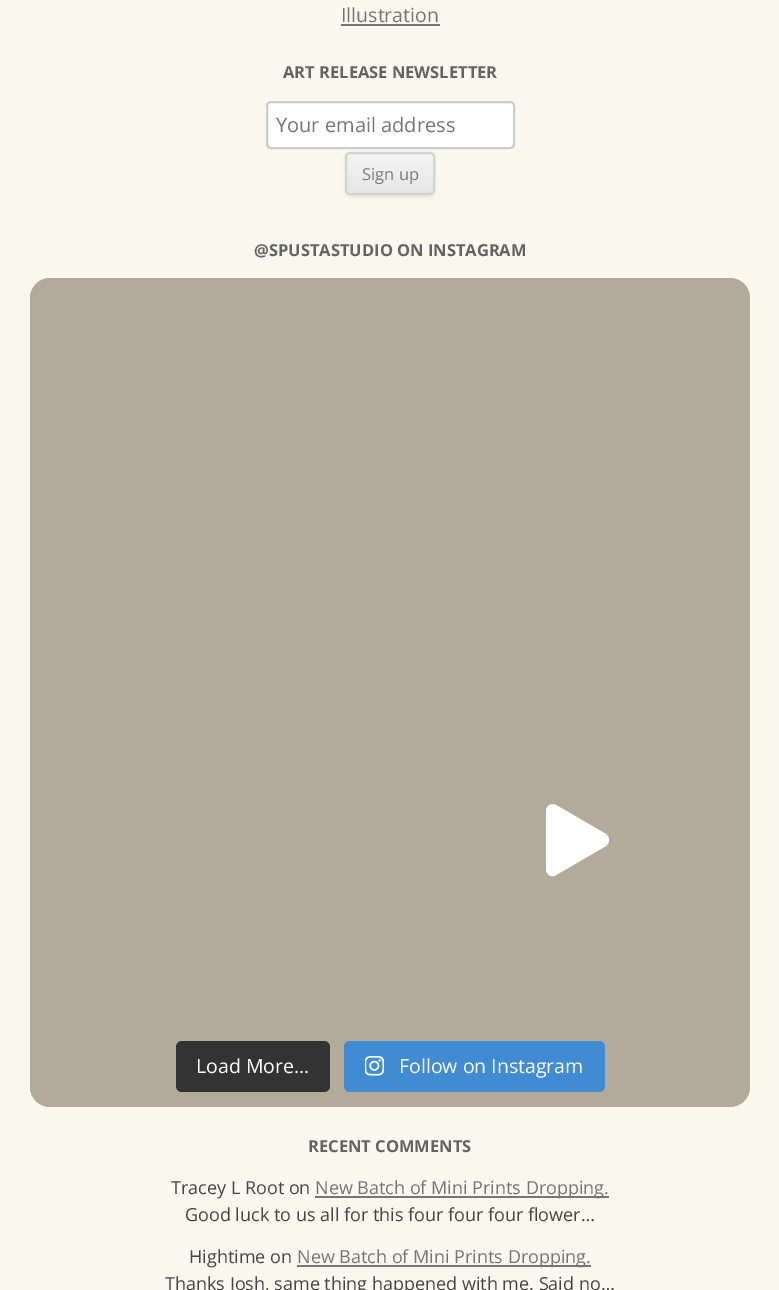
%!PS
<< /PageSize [779 1290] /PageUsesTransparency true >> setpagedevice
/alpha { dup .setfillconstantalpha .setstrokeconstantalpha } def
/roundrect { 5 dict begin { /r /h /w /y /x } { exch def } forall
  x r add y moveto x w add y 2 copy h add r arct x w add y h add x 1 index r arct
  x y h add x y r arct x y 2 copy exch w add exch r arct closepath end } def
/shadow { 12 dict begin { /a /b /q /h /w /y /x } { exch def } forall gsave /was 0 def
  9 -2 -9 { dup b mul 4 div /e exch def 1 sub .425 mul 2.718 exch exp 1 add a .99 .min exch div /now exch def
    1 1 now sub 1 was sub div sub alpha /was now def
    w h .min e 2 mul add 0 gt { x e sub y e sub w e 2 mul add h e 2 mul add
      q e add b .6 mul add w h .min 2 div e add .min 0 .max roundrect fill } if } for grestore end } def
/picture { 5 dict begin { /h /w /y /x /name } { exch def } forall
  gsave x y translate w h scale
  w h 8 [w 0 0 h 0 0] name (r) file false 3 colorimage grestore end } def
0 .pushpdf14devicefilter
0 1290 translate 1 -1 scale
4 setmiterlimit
0.98 0.969 0.933 setrgbcolor
0 0 779 1290 rectfill
/OpenSans-Regular [19.5 0 0 -19.5 0 0] selectfont
0.459 setgray
341 22 moveto (Illustration) show
341 24 99 2 rectfill
/OpenSans-Bold [16.5 0 0 -16.5 0 0] selectfont
0.388 setgray
283 78 moveto (ART RELEASE NEWSLETTER) show
1 setgray
267 102 247 46 4 roundrect gsave fill grestore
0.8 setgray
2 setlinewidth
stroke
/OpenSans-Regular [20 0 0 -20 0 0] selectfont
0.459 setgray
276 132 moveto (Your email address) show
0.251 setgray
345 153 90 44 5 1.5 0.1 shadow
gsave
345 152 90 43 5 roundrect clip newpath
gsave newpath 345 153 moveto 435 153 lineto 435 194 lineto 345 194 lineto closepath clip newpath
<< /ShadingType 2 /ColorSpace /DeviceRGB /Coords [390 153 390 194] /Extend [true true] /Function << /FunctionType 2 /Domain [0 1] /C0 [0.957 0.957 0.957] /C1 [0.902 0.902 0.902] /N 1 >> >> shfill grestore
grestore
0.824 setgray
346 153 88 41 4 roundrect stroke
/OpenSans-Regular [16.5 0 0 -16.5 0 0] selectfont
0.486 setgray
362 180 moveto (Sign up) show
/OpenSans-Bold [16.5 0 0 -16.5 0 0] selectfont
0.388 setgray
254 256 moveto (@SPUSTASTUDIO ON INSTAGRAM) show
0.698 0.671 0.604 setrgbcolor
30 278 720 829 20 roundrect fill
1 setgray
newpath 606 834 moveto 556 805 lineto 552 803 546 805 546 811 curveto 546 869 lineto 546 875 552 878 556 875 curveto 606 846 lineto 610 843 610 837 606 834 curveto closepath fill
0.2 setgray
176 1041 154 51 6 roundrect fill
/OpenSans-Regular [19.5 0 0 -19.5 0 0] selectfont
1 setgray
196 1073 moveto (Load More...) show
0.251 0.545 0.82 setrgbcolor
344 1041 261 51 6 roundrect fill
(img1.rgb) 365 1056 19 20 picture
1 setgray
399 1073 moveto (Follow on Instagram) show
/OpenSans-Bold [16.5 0 0 -16.5 0 0] selectfont
0.388 setgray
308 1152 moveto (RECENT COMMENTS) show
/OpenSans-Regular [18 0 0 -18 0 0] selectfont
0.267 setgray
171 1194 moveto (Tracey L Root on) show
0.459 setgray
315 1196 294 2 rectfill
315 1194 moveto (New Batch of Mini Prints Dropping.) show
0.267 setgray
185 1221 moveto (Good luck to us all for this four four four flower…) show
189 1263 moveto (Hightime on) show
0.459 setgray
297 1265 294 2 rectfill
297 1263 moveto (New Batch of Mini Prints Dropping.) show
0.267 setgray
165 1290 moveto (Thanks Josh, same thing happened with me. Said no…) show
.poppdf14devicefilter showpage
